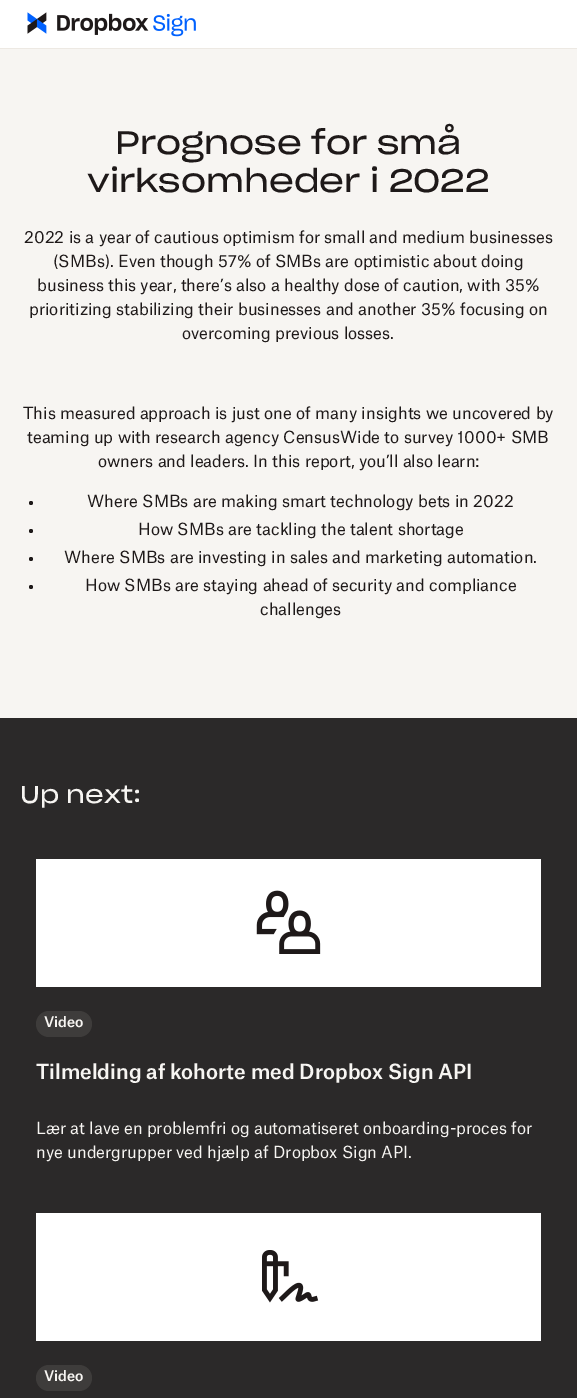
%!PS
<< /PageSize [577 1398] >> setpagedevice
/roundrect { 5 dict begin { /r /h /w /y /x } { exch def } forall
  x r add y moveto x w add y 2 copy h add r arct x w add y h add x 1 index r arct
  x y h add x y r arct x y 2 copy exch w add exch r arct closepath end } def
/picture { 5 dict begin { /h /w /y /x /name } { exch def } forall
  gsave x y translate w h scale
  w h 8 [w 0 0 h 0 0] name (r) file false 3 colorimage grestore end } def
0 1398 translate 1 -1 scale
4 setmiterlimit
1 setgray
0 0 577 1398 rectfill
0.929 0.914 0.89 setrgbcolor
0 48 577 1 rectfill
(img1.rgb) 27 12 169 25 picture
0.969 0.961 0.949 setrgbcolor
0 49 577 669 rectfill
/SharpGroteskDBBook-Regular [32 0 0 -32 0 0] selectfont
0.118 0.098 0.098 setrgbcolor
115 154 moveto (Prognose for små) show
87 192 moveto (virksomheder i 2022) show
/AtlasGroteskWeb-Regular [16 0 0 -16 0 0] selectfont
24 243 moveto (2022 is a year of cautious optimism for small and medium businesses) show
53 267 moveto (\(SMBs\). Even though 57% of SMBs are optimistic about doing) show
37 291 moveto (business this year, there’s also a healthy dose of caution, with 35%) show
29 315 moveto (prioritizing stabilizing their businesses and another 35% focusing on) show
182 339 moveto (overcoming previous losses.) show
23 419 moveto (This measured approach is just one of many insights we uncovered by) show
27 443 moveto (teaming up with research agency CensusWide to survey 1000+ SMB) show
98 467 moveto (owners and leaders. In this report, you’ll also learn:) show
newpath 31 503 2 0 360 arc closepath fill
87 507 moveto (Where SMBs are making smart technology bets in 2022) show
newpath 31 531 2 0 360 arc closepath fill
138 535 moveto (How SMBs are tackling the talent shortage) show
newpath 31 559 2 0 360 arc closepath fill
64 563 moveto (Where SMBs are investing in sales and marketing automation.) show
newpath 31 587 2 0 360 arc closepath fill
85 591 moveto (How SMBs are staying ahead of security and compliance) show
260 615 moveto (challenges) show
0.169 0.161 0.161 setrgbcolor
0 718 577 680 rectfill
/SharpGroteskDBBook-Regular [24 0 0 -24 0 0] selectfont
0.969 0.961 0.949 setrgbcolor
20 803 moveto (Up next:) show
1 setgray
36 859 505 128 rectfill
(img2.rgb) 256 890 65 64 picture
0.243 0.235 0.231 setrgbcolor
36 1011 56 26 13 roundrect fill
/AtlasGroteskWeb-Medium [14 0 0 -14 0 0] selectfont
0.969 0.961 0.949 setrgbcolor
44 1027 moveto (Video) show
/AtlasGroteskWeb-Medium [20 0 0 -20 0 0] selectfont
36 1079 moveto (Tilmelding af kohorte med Dropbox Sign API) show
/AtlasGroteskWeb-Regular [16 0 0 -16 0 0] selectfont
36 1134 moveto (Lær at lave en problemfri og automatiseret onboarding-proces for) show
36 1158 moveto (nye undergrupper ved hjælp af Dropbox Sign API.) show
1 setgray
36 1213 505 128 rectfill
(img3.rgb) 262 1250 57 53 picture
0.243 0.235 0.231 setrgbcolor
36 1365 56 26 13 roundrect fill
/AtlasGroteskWeb-Medium [14 0 0 -14 0 0] selectfont
0.969 0.961 0.949 setrgbcolor
44 1381 moveto (Video) show
showpage
